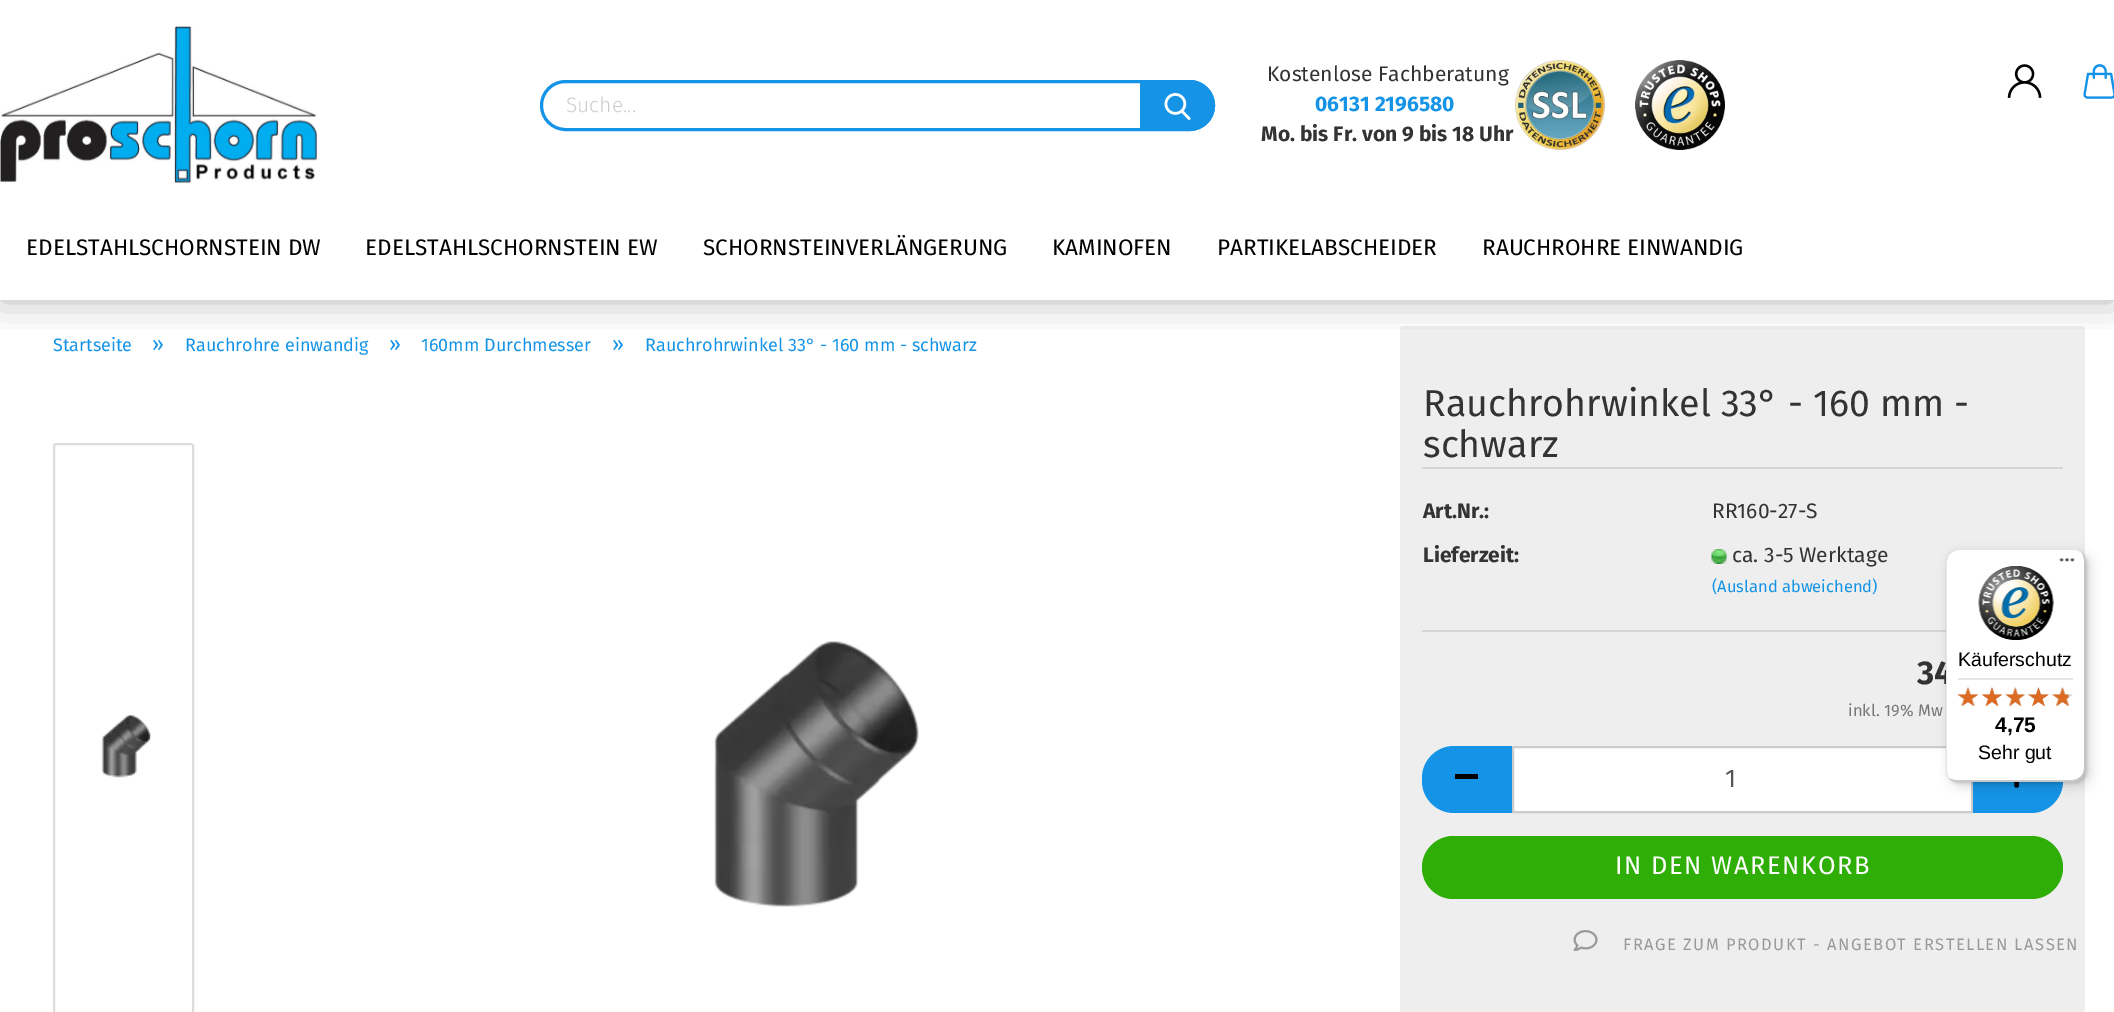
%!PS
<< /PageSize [2114 1012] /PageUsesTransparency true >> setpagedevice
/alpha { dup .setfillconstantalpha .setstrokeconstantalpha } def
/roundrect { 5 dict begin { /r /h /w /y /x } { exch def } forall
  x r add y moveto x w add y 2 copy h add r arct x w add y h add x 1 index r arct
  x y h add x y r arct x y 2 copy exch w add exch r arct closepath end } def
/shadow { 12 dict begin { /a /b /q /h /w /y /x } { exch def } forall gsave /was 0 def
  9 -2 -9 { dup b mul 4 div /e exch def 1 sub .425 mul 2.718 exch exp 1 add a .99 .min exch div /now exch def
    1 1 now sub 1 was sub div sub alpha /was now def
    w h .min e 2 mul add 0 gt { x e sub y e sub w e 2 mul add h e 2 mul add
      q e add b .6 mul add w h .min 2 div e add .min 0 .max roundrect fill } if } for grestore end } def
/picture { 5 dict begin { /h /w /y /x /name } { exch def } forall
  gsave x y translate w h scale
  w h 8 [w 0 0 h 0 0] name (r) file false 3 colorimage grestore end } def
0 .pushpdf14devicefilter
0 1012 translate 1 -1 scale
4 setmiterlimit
1 setgray
0 0 2114 1012 rectfill
0.933 setgray
1400 326 685 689 3 roundrect fill
gsave
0 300 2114 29 rectclip
0 setgray
0 0 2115 300 0 19 0.3 shadow
grestore
(img1.rgb) 0 26 317 158 picture
0.082 0.58 0.906 setrgbcolor
3 setlinewidth
541.5 81.5 672 48 24 roundrect stroke
/FiraSans-Light [21 0 0 -21 0 0] selectfont
0.8 setgray
566 112 moveto (Suche...) show
0.082 0.58 0.906 setrgbcolor
newpath 1140 80 moveto 1189.5 80 lineto 1203.5 80 1215 91.5 1215 105.5 curveto 1215 119.5 1203.5 131 1189.5 131 curveto 1140 131 lineto closepath fill
(img2.rgb) 1164 93 27 27 picture
/FiraSans-Regular [21 0 0 -21 0 0] selectfont
0.2 setgray
1267 81 moveto (Kostenlose Fachberatung) show
(img3.rgb) 1515 60 90 90 picture
(img4.rgb) 1635 60 90 90 picture
/FiraSans-Bold [21 0 0 -21 0 0] selectfont
0.082 0.58 0.906 setrgbcolor
1315 111 moveto (06131 2196580) show
0.2 setgray
1261 141 moveto (Mo. bis Fr. von 9 bis 18 Uhr) show
(img5.rgb) 2007 64 35 34 picture
(img6.rgb) 2083 64 31 35 picture
/FiraSans-Regular [22.5 0 0 -22.5 0 0] selectfont
0 setgray
26 255 moveto (EDELSTAHLSCHORNSTEIN DW) show
365 255 moveto (EDELSTAHLSCHORNSTEIN EW) show
703 255 moveto (SCHORNSTEINVERLÄNGERUNG) show
1052 255 moveto (KAMINOFEN) show
1217 255 moveto (PARTIKELABSCHEIDER) show
1482 255 moveto (RAUCHROHRE EINWANDIG) show
/FiraSans-Regular [18 0 0 -18 0 0] selectfont
0.082 0.58 0.906 setrgbcolor
53 351 moveto (Startseite) show
/FiraSans-Regular [21 0 0 -21 0 0] selectfont
152 351 moveto (») show
/FiraSans-Regular [18 0 0 -18 0 0] selectfont
185 351 moveto (Rauchrohre einwandig) show
/FiraSans-Regular [21 0 0 -21 0 0] selectfont
389 351 moveto (») show
/FiraSans-Regular [18 0 0 -18 0 0] selectfont
421 351 moveto (160mm Durchmesser) show
/FiraSans-Regular [21 0 0 -21 0 0] selectfont
612 351 moveto (») show
/FiraSans-Regular [18 0 0 -18 0 0] selectfont
645 351 moveto (Rauchrohrwinkel 33° - 160 mm - schwarz) show
0.867 setgray
2 setlinewidth
54 444 139 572 2 roundrect stroke
(img7.rgb) 101 715 50 63 picture
(img8.rgb) 714 641 205 266 picture
0.835 setgray
1422 467 641 2 rectfill
/FiraSans-Regular [37.5 0 0 -37.5 0 0] selectfont
0.2 setgray
1423 416 moveto (Rauchrohrwinkel 33° - 160 mm -) show
1423 457 moveto (schwarz) show
0.835 setgray
1422 630 524 2 rectfill
/FiraSans-Bold [21 0 0 -21 0 0] selectfont
0.2 setgray
1423 518 moveto (Art.Nr.:) show
/FiraSans-Regular [21 0 0 -21 0 0] selectfont
1712 518 moveto (RR160-27-S) show
/FiraSans-Bold [21 0 0 -21 0 0] selectfont
1423 562 moveto (Lieferzeit:) show
(img9.rgb) 1711 549 16 15 picture
/FiraSans-Regular [21 0 0 -21 0 0] selectfont
1732 562 moveto (ca. 3-5 Werktage) show
/FiraSans-Regular [16.5 0 0 -16.5 0 0] selectfont
0.082 0.58 0.906 setrgbcolor
1712 592 moveto (\(Ausland abweichend\)) show
/FiraSans-Bold [33 0 0 -33 0 0] selectfont
0.2 setgray
1917 684 moveto (34) show
/FiraSans-Regular [16.5 0 0 -16.5 0 0] selectfont
0.467 setgray
1848 716 moveto (inkl. 19% Mw) show
0.082 0.58 0.906 setrgbcolor
newpath 1454 746 moveto 1512 746 lineto 1512 813 lineto 1454 813 lineto 1436.5 813 1422 798.5 1422 781 curveto 1422 778 lineto 1422 760.5 1436.5 746 1454 746 curveto closepath fill
0 setgray
1455 774 23 5 rectfill
1 setgray
newpath 1513 747 moveto 1972 747 lineto 1972 812 lineto 1513 812 lineto closepath gsave fill grestore
0.8 setgray
stroke
/FiraSans-Regular [25.5 0 0 -25.5 0 0] selectfont
0.333 setgray
1725 787 moveto (1) show
0.082 0.58 0.906 setrgbcolor
newpath 1973 746 moveto 2031 746 lineto 2048.5 746 2063 760.5 2063 778 curveto 2063 781 lineto 2063 798.5 2048.5 813 2031 813 curveto 1973 813 lineto closepath fill
(img10.rgb) 2014 782 6 6 picture
0.18 0.682 0.024 setrgbcolor
1422 836 641 63 31.5 roundrect fill
1 setgray
1615 874 moveto 1.5 0 (IN DEN WARENKORB) ashow
(img11.rgb) 1573 930 25 21 picture
/FiraSans-Regular [16.5 0 0 -16.5 0 0] selectfont
0.6 setgray
1623 950 moveto 1.5 0 (FRAGE ZUM PRODUKT - ANGEBOT ERSTELLEN LASSEN) ashow
0 setgray
1950 554 140 232 12 6 0.15 shadow
1947 551 140 232 12 1.5 0.15 shadow
1 setgray
1946 549 139 233 12 roundrect fill
0.1 alpha
0 setgray
newpath 1959 550 moveto 2074 550 lineto 2077 550 2080 551 2082 553 curveto 2080 551 2077 549 2073 549 curveto 1958 549 lineto 1951 549 1946 554 1946 561 curveto 1946 770 lineto 1946 773 1947 776 1949 778 curveto 1948 776 1947 774 1947 771 curveto 1947 562 lineto 1947 556 1952 550 1959 550 curveto closepath fill
0.2 alpha
newpath 1949 778 moveto 1951 780 1954 782 1958 782 curveto 2073 782 lineto 2080 782 2085 777 2085 770 curveto 2085 561 lineto 2085 557 2083 554 2081 552 curveto 2083 554 2084 557 2084 560 curveto 2084 768 lineto 2084 775 2078 780 2072 780 curveto 1956 780 lineto 1953 780 1951 779 1949 778 curveto closepath fill
0.196 setgray
newpath 1949 778 moveto 1951 780 1954 782 1958 782 curveto 2073 782 lineto 2080 782 2085 777 2085 770 curveto 2085 561 lineto 2085 558 2084 555 2082 553 curveto 2083 555 2084 557 2084 560 curveto 2084 769 lineto 2084 775 2079 781 2072 781 curveto 1957 781 lineto 1954 781 1951 780 1949 778 curveto closepath fill
0.3 alpha
1 setgray
newpath 1949 778 moveto 1951 780 1954 782 1958 782 curveto 2073 782 lineto 2080 782 2085 777 2085 770 curveto 2085 561 lineto 2085 557 2083 554 2081 552 curveto 2083 554 2084 557 2084 560 curveto 2084 769 lineto 2084 775 2079 781 2072 781 curveto 1957 781 lineto 1954 781 1951 780 1949 778 curveto closepath fill
1 alpha
(img12.rgb) 2059 558 16 4 picture
(img13.rgb) 1978 566 76 75 picture
/LiberationSans-Regular [19.5 0 0 -19.5 0 0] selectfont
0 setgray
1958 666 moveto (Käuferschutz) show
0.898 setgray
1958 678 115 2 rectfill
(img14.rgb) 1957 687 22 19 picture
(img15.rgb) 1982 687 20 19 picture
(img16.rgb) 2005 687 20 19 picture
(img17.rgb) 2028 687 21 19 picture
(img18.rgb) 2052 687 21 19 picture
(img19.rgb) 1957 687 22 19 picture
(img20.rgb) 1982 687 20 20 picture
(img21.rgb) 2005 687 20 19 picture
(img22.rgb) 2028 687 21 20 picture
(img23.rgb) 2052 687 17 19 picture
/LiberationSans-Bold [21 0 0 -21 0 0] selectfont
0 setgray
1995 732 moveto (4,75) show
/LiberationSans-Regular [19.5 0 0 -19.5 0 0] selectfont
1978 759 moveto (Sehr gut) show
.poppdf14devicefilter showpage
